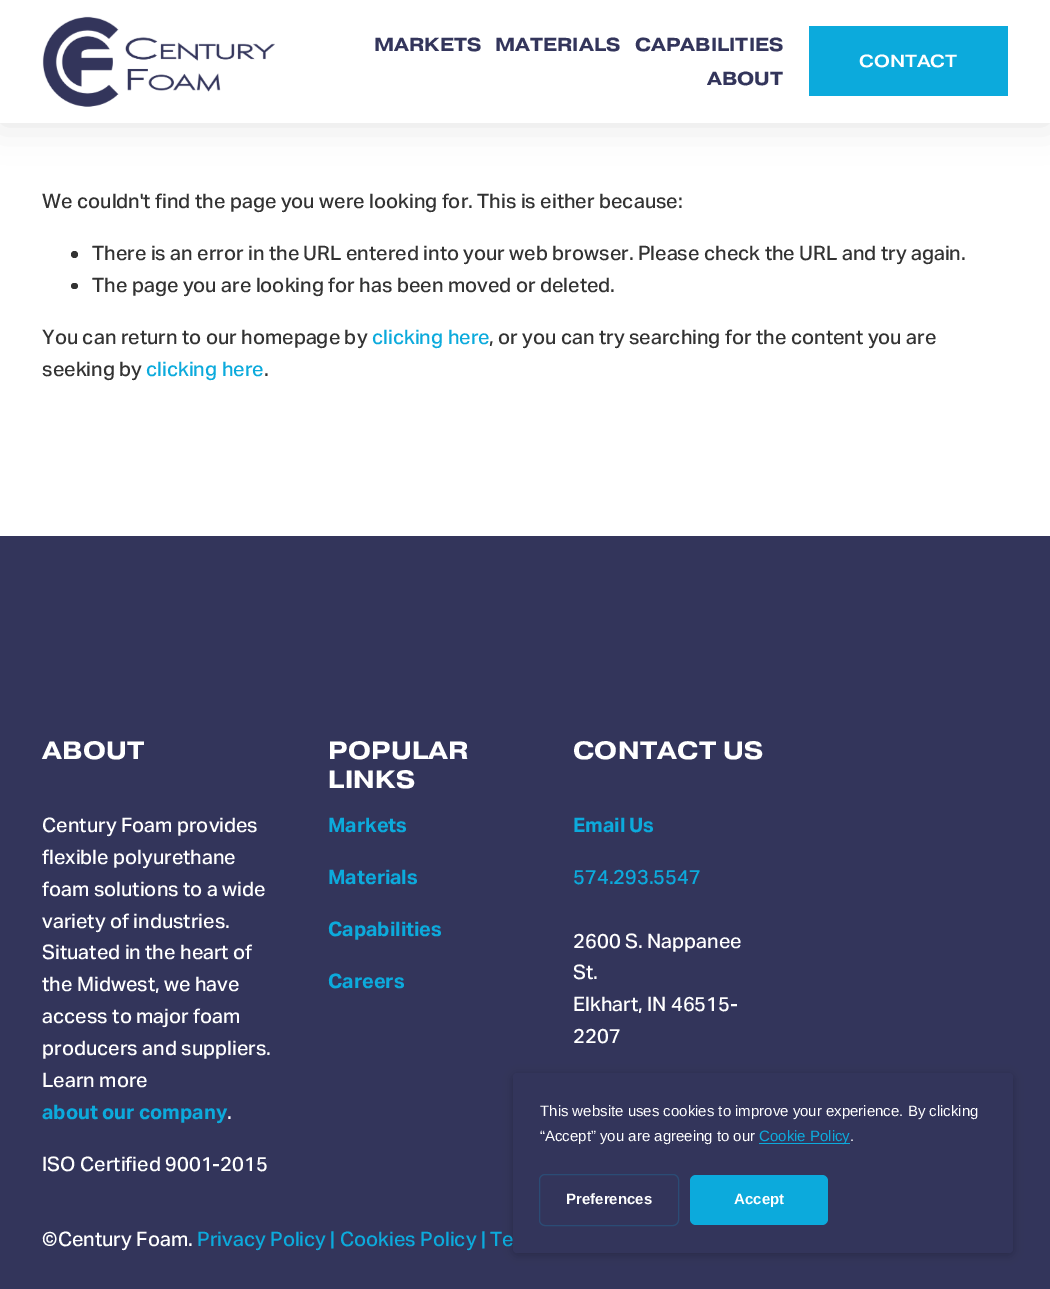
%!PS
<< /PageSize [1050 1289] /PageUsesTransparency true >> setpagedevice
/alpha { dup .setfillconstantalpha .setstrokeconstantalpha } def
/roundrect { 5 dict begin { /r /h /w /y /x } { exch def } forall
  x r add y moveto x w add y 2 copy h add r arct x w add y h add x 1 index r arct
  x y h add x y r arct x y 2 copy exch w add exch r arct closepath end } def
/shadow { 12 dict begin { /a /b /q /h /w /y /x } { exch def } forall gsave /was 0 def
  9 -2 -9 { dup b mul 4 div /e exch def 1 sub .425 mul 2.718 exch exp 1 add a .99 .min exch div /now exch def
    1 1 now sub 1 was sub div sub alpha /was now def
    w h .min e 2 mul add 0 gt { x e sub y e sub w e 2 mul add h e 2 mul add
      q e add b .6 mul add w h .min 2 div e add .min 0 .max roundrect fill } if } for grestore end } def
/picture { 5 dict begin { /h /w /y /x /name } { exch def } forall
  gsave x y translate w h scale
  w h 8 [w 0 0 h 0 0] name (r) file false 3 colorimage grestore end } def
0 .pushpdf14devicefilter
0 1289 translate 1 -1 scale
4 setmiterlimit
1 setgray
0 0 1050 1289 rectfill
0.878 setgray
0 0 1050 123 0 19 1 shadow
1 setgray
0 0 1050 123 rectfill
(img1.rgb) 42 16 233 91 picture
/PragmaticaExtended-Bold [18.75 0 0 -18.75 0 0] selectfont
0.2 0.208 0.357 setrgbcolor
374 51 moveto (MARKETS) show
495 51 moveto (MATERIALS) show
635 51 moveto (CAPABILITIES) show
707 85 moveto (ABOUT) show
0.047 0.667 0.863 setrgbcolor
809 26 199 70 rectfill
/PragmaticaExtended-Medium [17.5 0 0 -17.5 0 0] selectfont
1 setgray
859 67 moveto (CONTACT) show
/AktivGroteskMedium-Medium [20 0 0 -20 0 0] selectfont
0.2 setgray
42 208 moveto (We couldn't find the page you were looking for. This is either because:) show
newpath 74.5 254.5 3.5 0 360 arc closepath fill
92 260 moveto (There is an error in the URL entered into your web browser. Please check the URL and try again.) show
71 283 7 6 3 roundrect fill
92 292 moveto (The page you are looking for has been moved or deleted.) show
42 344 moveto (You can return to our homepage by) show
0.047 0.667 0.863 setrgbcolor
372 344 moveto (clicking here) show
0.2 setgray
489 344 moveto (, or you can try searching for the content you are) show
42 376 moveto (seeking by) show
0.047 0.667 0.863 setrgbcolor
146 376 moveto (clicking here) show
0.2 setgray
264 376 moveto (.) show
0.2 0.208 0.357 setrgbcolor
0 536 1050 753 rectfill
/PragmaticaExtended-Bold [25 0 0 -25 0 0] selectfont
1 setgray
42 759 moveto 0.25 0 (ABOUT) ashow
328 759 moveto 0.25 0 (POPULAR) ashow
328 788 moveto 0.25 0 (LINKS) ashow
573 759 moveto 0.25 0 (CONTACT US) ashow
/AktivGroteskMedium-Medium [20 0 0 -20 0 0] selectfont
42 832 moveto (Century Foam provides) show
42 864 moveto (flexible polyurethane) show
42 896 moveto (foam solutions to a wide) show
42 928 moveto (variety of industries.) show
42 959 moveto (Situated in the heart of) show
42 991 moveto (the Midwest, we have) show
42 1023 moveto (access to major foam) show
42 1055 moveto (producers and suppliers.) show
42 1087 moveto (Learn more) show
/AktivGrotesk-Bold [20 0 0 -20 0 0] selectfont
0.047 0.667 0.863 setrgbcolor
42 1119 moveto (about our company) show
/AktivGroteskMedium-Medium [20 0 0 -20 0 0] selectfont
1 setgray
227 1119 moveto (.) show
42 1171 moveto (ISO Certified 9001-2015) show
/AktivGrotesk-Bold [20 0 0 -20 0 0] selectfont
0.047 0.667 0.863 setrgbcolor
328 832 moveto (Markets) show
328 884 moveto (Materials) show
328 936 moveto (Capabilities) show
328 988 moveto (Careers) show
573 832 moveto (Email Us) show
/AktivGroteskMedium-Medium [20 0 0 -20 0 0] selectfont
573 884 moveto (574.293.5547) show
1 setgray
573 948 moveto (2600 S. Nappanee) show
573 979 moveto (St.) show
573 1011 moveto (Elkhart, IN 46515-) show
573 1043 moveto (2207) show
42 1246 moveto (©Century Foam.) show
0.047 0.667 0.863 setrgbcolor
197 1246 moveto (Privacy Policy | Cookies Policy | Te) show
0 setgray
513 1075 500 180 4 5 0.2 shadow
0.2 0.208 0.357 setrgbcolor
513 1073 500 180 4 roundrect fill
/LiberationSans-Regular [15 0 0 -15 0 0] selectfont
1 setgray
540 1116 moveto (This website uses cookies to improve your experience. By clicking) show
540 1141 moveto (“Accept” you are agreeing to our) show
0.047 0.667 0.863 setrgbcolor
759 1143 91 1 rectfill
759 1141 moveto (Cookie Policy) show
1 setgray
850 1141 moveto (.) show
0.169 0.298 0.459 setrgbcolor
539.5 1174.5 139 51 5.5 roundrect stroke
/LiberationSans-Bold [15 0 0 -15 0 0] selectfont
1 setgray
566 1204 moveto (Preferences) show
0.047 0.667 0.863 setrgbcolor
690 1175 138 50 6 roundrect fill
1 setgray
734 1204 moveto (Accept) show
.poppdf14devicefilter showpage
